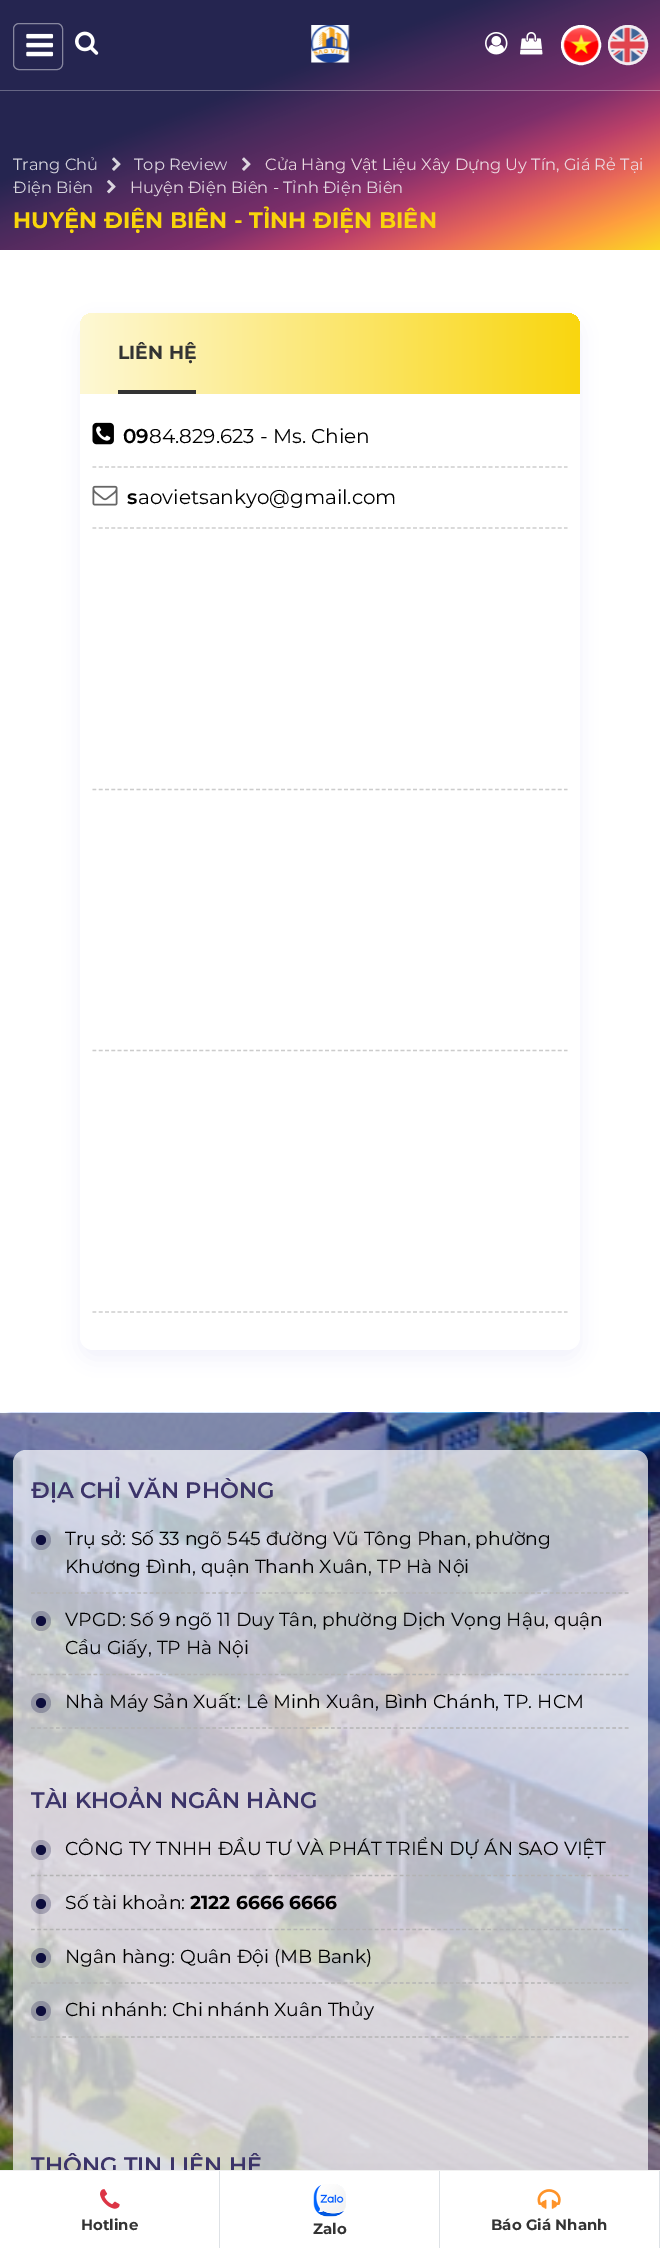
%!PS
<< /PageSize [660 2248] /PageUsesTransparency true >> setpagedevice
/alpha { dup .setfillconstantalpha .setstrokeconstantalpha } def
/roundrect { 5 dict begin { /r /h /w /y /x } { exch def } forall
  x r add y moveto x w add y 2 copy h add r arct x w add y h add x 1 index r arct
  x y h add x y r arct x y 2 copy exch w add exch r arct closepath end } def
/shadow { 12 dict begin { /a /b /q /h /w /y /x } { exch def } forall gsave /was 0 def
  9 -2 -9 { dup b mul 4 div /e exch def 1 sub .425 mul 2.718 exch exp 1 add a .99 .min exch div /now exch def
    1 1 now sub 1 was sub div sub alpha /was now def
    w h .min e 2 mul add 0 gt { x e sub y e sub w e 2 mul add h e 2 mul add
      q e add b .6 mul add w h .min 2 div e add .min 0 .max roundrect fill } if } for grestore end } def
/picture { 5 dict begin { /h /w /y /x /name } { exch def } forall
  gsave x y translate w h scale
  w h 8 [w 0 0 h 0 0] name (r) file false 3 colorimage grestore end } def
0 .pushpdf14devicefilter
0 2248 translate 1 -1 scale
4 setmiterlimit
1 setgray
0 0 660 2248 rectfill
gsave newpath 0 0 moveto 660 0 lineto 660 250 lineto 0 250 lineto closepath clip newpath
<< /ShadingType 2 /ColorSpace /DeviceRGB /Coords [247 -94 413 344] /Extend [true true] /Function << /FunctionType 3 /Domain [0 1] /Functions [<< /FunctionType 2 /Domain [0 1] /C0 [0.145 0.145 0.314] /C1 [0.145 0.145 0.314] /N 1 >> << /FunctionType 2 /Domain [0 1] /C0 [0.145 0.145 0.314] /C1 [0.271 0.165 0.357] /N 1 >> << /FunctionType 2 /Domain [0 1] /C0 [0.271 0.165 0.357] /C1 [0.384 0.173 0.392] /N 1 >> << /FunctionType 2 /Domain [0 1] /C0 [0.384 0.173 0.392] /C1 [0.494 0.184 0.416] /N 1 >> << /FunctionType 2 /Domain [0 1] /C0 [0.494 0.184 0.416] /C1 [0.733 0.251 0.412] /N 1 >> << /FunctionType 2 /Domain [0 1] /C0 [0.733 0.251 0.412] /C1 [0.91 0.408 0.349] /N 1 >> << /FunctionType 2 /Domain [0 1] /C0 [0.91 0.408 0.349] /C1 [0.996 0.62 0.243] /N 1 >> << /FunctionType 2 /Domain [0 1] /C0 [0.996 0.62 0.243] /C1 [0.98 0.851 0.137] /N 1 >>] /Bounds [0.36 0.45 0.55 0.64 0.73 0.82 0.91] /Encode [0 1 0 1 0 1 0 1 0 1 0 1 0 1 0 1] >> >> shfill grestore
0.525 0.525 0.62 setrgbcolor
13.5 23.5 49 46 5.5 roundrect stroke
(img1.rgb) 26 33 28 24 picture
(img2.rgb) 75 31 24 24 picture
(img3.rgb) 311 25 39 38 picture
(img4.rgb) 485 32 23 23 picture
(img5.rgb) 520 32 23 23 picture
1 setgray
3 setlinewidth
newpath 581 45 18.5 0 360 arc closepath stroke
(img6.rgb) 563 27 37 36 picture
0.7 alpha
newpath 628 45 20 0 360 arc closepath fill
newpath 628 45 18.5 0 360 arc closepath stroke
1 alpha
(img7.rgb) 609 27 37 36 picture
gsave newpath 0 90 moveto 660 90 lineto 660 91 lineto 0 91 lineto closepath clip newpath
<< /ShadingType 2 /ColorSpace /DeviceRGB /Coords [247 -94 413 344] /Extend [true true] /Function << /FunctionType 3 /Domain [0 1] /Functions [<< /FunctionType 2 /Domain [0 1] /C0 [0.4 0.4 0.522] /C1 [0.4 0.4 0.522] /N 1 >> << /FunctionType 2 /Domain [0 1] /C0 [0.4 0.4 0.522] /C1 [0.49 0.416 0.549] /N 1 >> << /FunctionType 2 /Domain [0 1] /C0 [0.49 0.416 0.549] /C1 [0.569 0.42 0.576] /N 1 >> << /FunctionType 2 /Domain [0 1] /C0 [0.569 0.42 0.576] /C1 [0.647 0.427 0.592] /N 1 >> << /FunctionType 2 /Domain [0 1] /C0 [0.647 0.427 0.592] /C1 [0.812 0.475 0.588] /N 1 >> << /FunctionType 2 /Domain [0 1] /C0 [0.812 0.475 0.588] /C1 [0.937 0.584 0.545] /N 1 >> << /FunctionType 2 /Domain [0 1] /C0 [0.937 0.584 0.545] /C1 [0.996 0.733 0.471] /N 1 >> << /FunctionType 2 /Domain [0 1] /C0 [0.996 0.733 0.471] /C1 [0.988 0.894 0.396] /N 1 >>] /Bounds [0.36 0.45 0.55 0.64 0.73 0.82 0.91] /Encode [0 1 0 1 0 1 0 1 0 1 0 1 0 1 0 1] >> >> shfill grestore
/Montserrat-Regular [16.25 0 0 -16.25 0 0] selectfont
0.835 0.831 0.863 setrgbcolor
13 170 moveto (Trang Chủ) show
(img8.rgb) 112 157 9 14 picture
0.859 0.831 0.875 setrgbcolor
134 170 moveto (Top Review) show
(img9.rgb) 242 157 9 14 picture
0.922 0.847 0.878 setrgbcolor
265 170 moveto (Cửa Hàng Vật Liệu Xây Dựng Uy Tín, Giá Rẻ Tại) show
0.835 0.831 0.863 setrgbcolor
13 193 moveto (Điện Biên) show
(img10.rgb) 107 179 9 15 picture
0.886 0.835 0.878 setrgbcolor
130 193 moveto (Huyện Điện Biên - Tỉnh Điện Biên) show
/Montserrat-Bold [22.5 0 0 -22.5 0 0] selectfont
0.976 0.835 0.043 setrgbcolor
13 228 moveto (HUYỆN ĐIỆN BIÊN - TỈNH ĐIỆN BIÊN) show
0 0.035 0.502 setrgbcolor
80 321 500 1038 13 11 0.05 shadow
1 setgray
80 313 500 1037 13 roundrect fill
gsave newpath 93 313 moveto 567 313 lineto 574 313 580 319 580 326 curveto 580 394 lineto 80 394 lineto 80 326 lineto 80 319 86 313 93 313 curveto closepath clip newpath
<< /ShadingType 2 /ColorSpace /DeviceRGB /Coords [-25 353 591 353] /Extend [true true] /Function << /FunctionType 2 /Domain [0 1] /C0 [1 1 1] /C1 [0.976 0.835 0.043] /N 1 >> >> shfill grestore
0.2 setgray
118 390 78 4 rectfill
/Montserrat-Bold [18.75 0 0 -18.75 0 0] selectfont
118 359 moveto (LIÊN HỆ) show
0.8 setgray
1.2 setlinewidth
[3.75 2.54] 0 setdash
newpath 92.5 467 moveto 567.5 467 lineto stroke
(img11.rgb) 92 422 22 23 picture
/Montserrat-SemiBold [20 0 0 -20 0 0] selectfont
0 setgray
123 443 moveto (09) show
/Montserrat-Regular [20 0 0 -20 0 0] selectfont
149 443 moveto (84.829.623 - Ms. Chien) show
0.8 setgray
newpath 92.5 528 moveto 567.5 528 lineto stroke
(img12.rgb) 92 485 26 21 picture
/Montserrat-SemiBold [20 0 0 -20 0 0] selectfont
0 setgray
127 504 moveto (s) show
/Montserrat-Regular [20 0 0 -20 0 0] selectfont
138 504 moveto (aovietsankyo@gmail.com) show
0.8 setgray
newpath 92.5 789.5 moveto 567.5 789.5 lineto stroke
newpath 92.5 1050.5 moveto 567.5 1050.5 lineto stroke
newpath 92.5 1312 moveto 567.5 1312 lineto stroke
(img13.rgb) 0 1412 660 758 picture
0.7 alpha
1 setgray
13 1450 635 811 13 roundrect fill
/Montserrat-SemiBold [22.5 0 0 -22.5 0 0] selectfont
1 alpha
0.235 0.204 0.412 setrgbcolor
31 1498 moveto (ĐỊA CHỈ VĂN PHÒNG) show
0.702 setgray
[3.75 2.5] 0 setdash
newpath 31 1593 moveto 629 1593 lineto stroke
0.25 alpha
0.051 0.051 0.235 setrgbcolor
newpath 41 1540 10 0 360 arc closepath fill
/Montserrat-Regular [18.75 0 0 -18.75 0 0] selectfont
1 alpha
0 setgray
65 1545 moveto (Trụ sở: Số 33 ngõ 545 đường Vũ Tông Phan, phường) show
0.051 0.051 0.235 setrgbcolor
newpath 41 1540 5 0 360 arc closepath fill
0 setgray
65 1573 moveto (Khương Đình, quận Thanh Xuân, TP Hà Nội) show
0.702 setgray
newpath 31 1674.5 moveto 629 1674.5 lineto stroke
0.25 alpha
0.051 0.051 0.235 setrgbcolor
newpath 41 1621 10 0 360 arc closepath fill
1 alpha
0 setgray
65 1626 moveto (VPGD: Số 9 ngõ 11 Duy Tân, phường Dịch Vọng Hậu, quận) show
0.051 0.051 0.235 setrgbcolor
newpath 41 1621 5 0 360 arc closepath fill
0 setgray
65 1654 moveto (Cầu Giấy, TP Hà Nội) show
0.702 setgray
newpath 31 1728 moveto 629 1728 lineto stroke
0.25 alpha
0.051 0.051 0.235 setrgbcolor
newpath 41 1703 10 0 360 arc closepath fill
1 alpha
0 setgray
65 1708 moveto (Nhà Máy Sản Xuất: Lê Minh Xuân, Bình Chánh, TP. HCM) show
0.051 0.051 0.235 setrgbcolor
newpath 41 1703 5 0 360 arc closepath fill
/Montserrat-SemiBold [22.5 0 0 -22.5 0 0] selectfont
0.235 0.204 0.412 setrgbcolor
31 1808 moveto (TÀI KHOẢN NGÂN HÀNG) show
0.702 setgray
newpath 31 1875.5 moveto 629 1875.5 lineto stroke
0.25 alpha
0.051 0.051 0.235 setrgbcolor
newpath 41 1850 10 0 360 arc closepath fill
/Montserrat-Regular [18.75 0 0 -18.75 0 0] selectfont
1 alpha
0 setgray
65 1855 moveto (CÔNG TY TNHH ĐẦU TƯ VÀ PHÁT TRIỂN DỰ ÁN SAO VIỆT) show
0.051 0.051 0.235 setrgbcolor
newpath 41 1850 5 0 360 arc closepath fill
0.702 setgray
newpath 31 1929.5 moveto 629 1929.5 lineto stroke
0.25 alpha
0.051 0.051 0.235 setrgbcolor
newpath 41 1904 10 0 360 arc closepath fill
1 alpha
0 setgray
65 1909 moveto (Số tài khoản:) show
/Montserrat-Bold [18.75 0 0 -18.75 0 0] selectfont
190 1909 moveto (2122 6666 6666) show
0.051 0.051 0.235 setrgbcolor
newpath 41 1904 5 0 360 arc closepath fill
0.702 setgray
newpath 31 1983 moveto 629 1983 lineto stroke
0.25 alpha
0.051 0.051 0.235 setrgbcolor
newpath 41 1958 10 0 360 arc closepath fill
/Montserrat-Regular [18.75 0 0 -18.75 0 0] selectfont
1 alpha
0 setgray
65 1963 moveto (Ngân hàng: Quân Đội \(MB Bank\)) show
0.051 0.051 0.235 setrgbcolor
newpath 41 1958 5 0 360 arc closepath fill
0.702 setgray
newpath 31 2037 moveto 629 2037 lineto stroke
0.25 alpha
0.051 0.051 0.235 setrgbcolor
newpath 41 2011 10 0 360 arc closepath fill
1 alpha
0 setgray
65 2016 moveto (Chi nhánh: Chi nhánh Xuân Thủy) show
0.051 0.051 0.235 setrgbcolor
newpath 41 2011 5 0 360 arc closepath fill
/Montserrat-SemiBold [22.5 0 0 -22.5 0 0] selectfont
0.235 0.204 0.412 setrgbcolor
31 2173 moveto (THÔNG TIN LIÊN HỆ) show
0.353 0.38 0.412 setrgbcolor
0 2180 660 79 0 22 0.1 shadow
1 setgray
0 2171 659 77 rectfill
0.945 setgray
0 2170 660 1 rectfill
0.871 0.886 0.902 setrgbcolor
219 2171 1 77 rectfill
(img14.rgb) 100 2189 20 20 picture
/Montserrat-Bold [15 0 0 -15 0 0] selectfont
0.2 setgray
81 2230 moveto (Hotline) show
0.871 0.886 0.902 setrgbcolor
439 2171 1 77 rectfill
(img15.rgb) 313 2184 33 33 picture
0.2 setgray
313 2234 moveto (Zalo) show
0.871 0.886 0.902 setrgbcolor
659 2171 1 77 rectfill
(img16.rgb) 537 2189 24 20 picture
0.2 setgray
491 2230 moveto (Báo Giá Nhanh) show
.poppdf14devicefilter showpage
